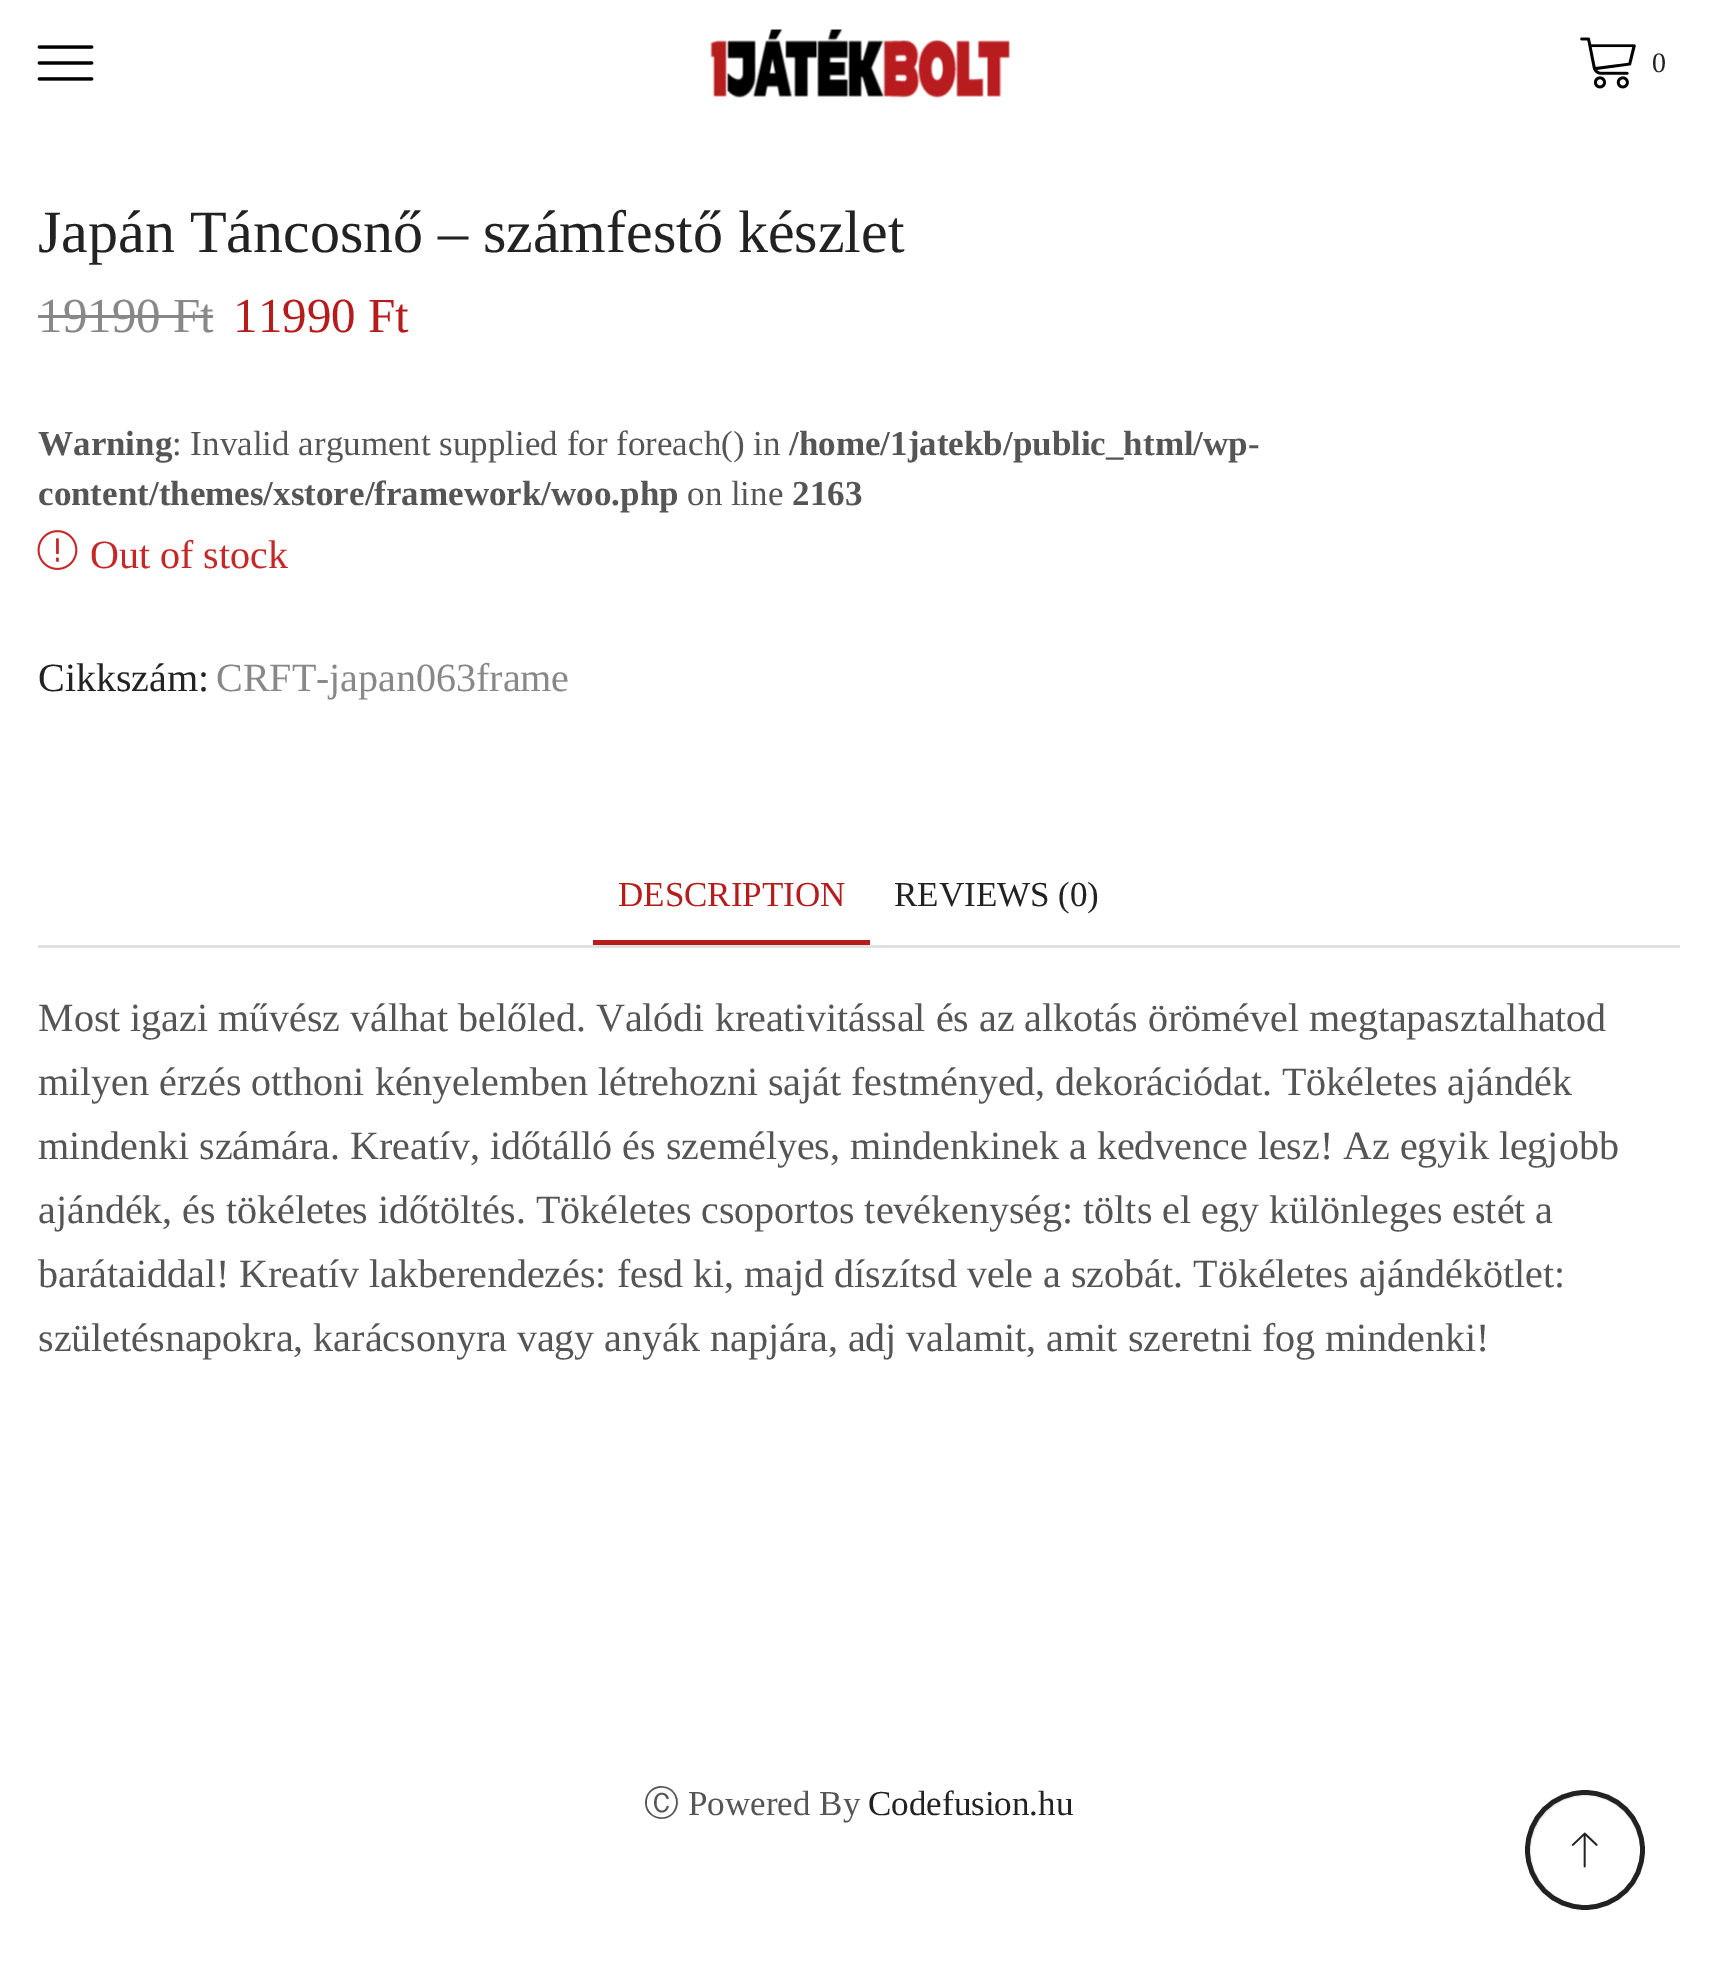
%!PS
<< /PageSize [1716 1982] >> setpagedevice
/picture { 5 dict begin { /h /w /y /x /name } { exch def } forall
  gsave x y translate w h scale
  w h 8 [w 0 0 h 0 0] name (r) file false 3 colorimage grestore end } def
0 1982 translate 1 -1 scale
4 setmiterlimit
1 setgray
0 0 1716 1982 rectfill
(img1.rgb) 37 45 57 36 picture
(img2.rgb) 710 29 300 69 picture
(img3.rgb) 1580 37 56 52 picture
/LiberationSerif-Regular [28 0 0 -28 0 0] selectfont
0.133 setgray
1652 72 moveto (0) show
/LiberationSerif-Regular [60 0 0 -60 0 0] selectfont
38 252 moveto (Japán Táncosnő – számfestő készlet) show
/LiberationSerif-Regular [49 0 0 -49 0 0] selectfont
0.533 setgray
38 332 moveto (19190 Ft) show
38 315 175 3 rectfill
0.718 0.11 0.11 setrgbcolor
233 332 moveto (11990 Ft) show
/LiberationSerif-Bold [35 0 0 -35 0 0] selectfont
0.333 setgray
38 455 moveto (Warning) show
/LiberationSerif-Regular [35 0 0 -35 0 0] selectfont
172 455 moveto (: Invalid argument supplied for foreach\(\) in) show
/LiberationSerif-Bold [35 0 0 -35 0 0] selectfont
789 455 moveto (/home/1jatekb/public_html/wp-) show
38 505 moveto (content/themes/xstore/framework/woo.php) show
/LiberationSerif-Regular [35 0 0 -35 0 0] selectfont
687 505 moveto (on line) show
/LiberationSerif-Bold [35 0 0 -35 0 0] selectfont
792 505 moveto (2163) show
(img4.rgb) 37 530 41 40 picture
/LiberationSerif-Regular [40 0 0 -40 0 0] selectfont
0.776 0.157 0.157 setrgbcolor
90 568 moveto (Out of stock) show
0.133 setgray
38 691 moveto (Cikkszám:) show
0.533 setgray
216 691 moveto (CRFT-japan063frame) show
0.882 setgray
38 945 1642 3 rectfill
/LiberationSerif-Regular [35 0 0 -35 0 0] selectfont
0.718 0.11 0.11 setrgbcolor
618 906 moveto (DESCRIPTION) show
593 940 277 5 rectfill
0.133 setgray
894 906 moveto (REVIEWS \(0\)) show
/LiberationSerif-Regular [40 0 0 -40 0 0] selectfont
0.333 setgray
38 1031 moveto (Most igazi művész válhat belőled. Valódi kreativitással és az alkotás örömével megtapasztalhatod) show
38 1095 moveto (milyen érzés otthoni kényelemben létrehozni saját festményed, dekorációdat. Tökéletes ajándék) show
38 1159 moveto (mindenki számára. Kreatív, időtálló és személyes, mindenkinek a kedvence lesz! Az egyik legjobb) show
38 1223 moveto (ajándék, és tökéletes időtöltés. Tökéletes csoportos tevékenység: tölts el egy különleges estét a) show
38 1287 moveto (barátaiddal! Kreatív lakberendezés: fesd ki, majd díszítsd vele a szobát. Tökéletes ajándékötlet:) show
38 1351 moveto (születésnapokra, karácsonyra vagy anyák napjára, adj valamit, amit szeretni fog mindenki!) show
/WenQuanYiZenHei-Medium [35 0 0 -35 0 0] selectfont
644 1815 moveto (Ⓒ) show
/LiberationSerif-Regular [35 0 0 -35 0 0] selectfont
688 1815 moveto (Powered By) show
0.133 setgray
868 1815 moveto (Codefusion.hu) show
0.906 setgray
3 setlinewidth
newpath 1585.5 1850.5 56 0 360 arc closepath stroke
0.133 setgray
4.7 setlinewidth
newpath 1585 1792.5 moveto 1617 1792.5 1642.5 1818 1642.5 1850 curveto 1642.5 1882 1617 1907.5 1585 1907.5 curveto 1553 1907.5 1527.5 1882 1527.5 1850 curveto 1527.5 1818 1553 1792.5 1585 1792.5 curveto stroke
(img5.rgb) 1571 1832 27 36 picture
showpage
